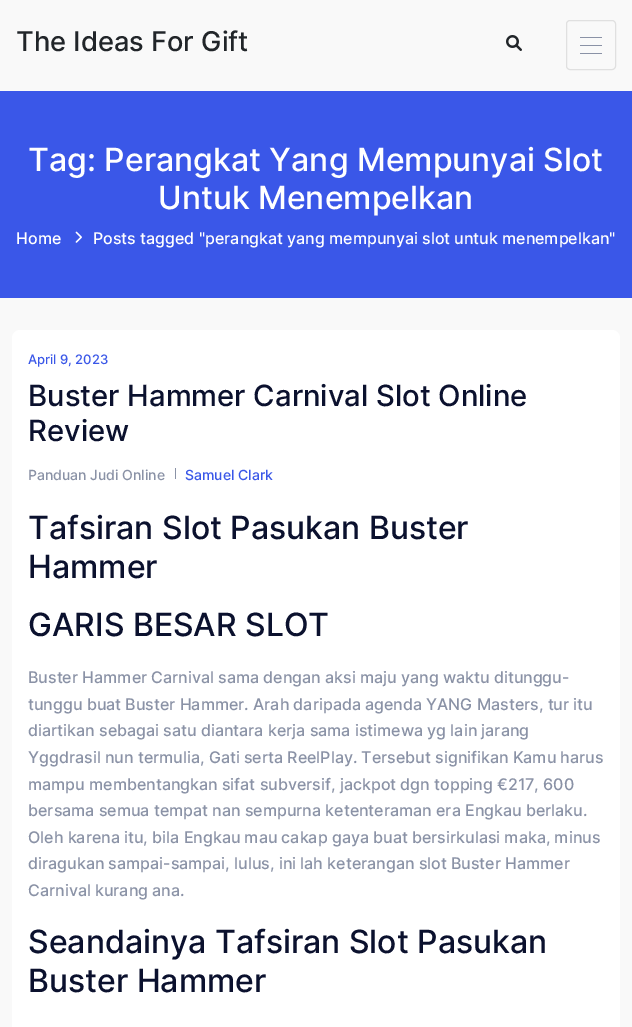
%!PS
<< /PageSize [632 1027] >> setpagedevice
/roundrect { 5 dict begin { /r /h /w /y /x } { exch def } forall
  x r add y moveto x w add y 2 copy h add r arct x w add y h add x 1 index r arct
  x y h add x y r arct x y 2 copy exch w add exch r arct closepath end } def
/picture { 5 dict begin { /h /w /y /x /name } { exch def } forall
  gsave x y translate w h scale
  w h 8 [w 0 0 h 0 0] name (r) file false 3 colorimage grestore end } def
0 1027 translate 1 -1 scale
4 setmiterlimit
0.976 setgray
0 0 632 1027 rectfill
/Inter-Medium [27.25 0 0 -27.25 0 0] selectfont
0.129 0.145 0.161 setrgbcolor
16 51 moveto (The Ideas For Gift) show
(img1.rgb) 506 35 16 16 picture
0.878 setgray
566.5 20.5 49 49 3.5 roundrect stroke
0.541 0.573 0.651 setrgbcolor
580 37 22 1 0.5 roundrect fill
580 45 22 1 0.5 roundrect fill
580 53 22 1 0.5 roundrect fill
0.227 0.341 0.91 setrgbcolor
0 91 632 207 rectfill
/Inter-Medium [32 0 0 -32 0 0] selectfont
1 setgray
28 171 moveto (Tag: Perangkat Yang Mempunyai Slot) show
158 209 moveto (Untuk Menempelkan) show
/Inter-Medium [16 0 0 -16 0 0] selectfont
16 244 moveto (Home) show
(img2.rgb) 75 231 7 12 picture
93 244 moveto (Posts tagged "perangkat yang mempunyai slot untuk menempelkan") show
12 330 608 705 8 roundrect fill
/Inter-Medium [13 0 0 -13 0 0] selectfont
0.227 0.341 0.91 setrgbcolor
28 364 moveto (April 9, 2023) show
/Inter-Medium [29.25 0 0 -29.25 0 0] selectfont
0.043 0.067 0.18 setrgbcolor
28 406 moveto (Buster Hammer Carnival Slot Online) show
28 441 moveto (Review) show
/Inter-Medium [14 0 0 -14 0 0] selectfont
0.541 0.573 0.651 setrgbcolor
28 480 moveto (Panduan Judi Online) show
175 468 1 11 rectfill
0.227 0.341 0.91 setrgbcolor
185 480 moveto (Samuel Clark) show
/Inter-Medium [32 0 0 -32 0 0] selectfont
0.043 0.067 0.18 setrgbcolor
28 539 moveto (Tafsiran Slot Pasukan Buster) show
28 578 moveto (Hammer) show
28 636 moveto (GARIS BESAR SLOT) show
/Inter-Medium [16 0 0 -16 0 0] selectfont
0.541 0.573 0.651 setrgbcolor
28 683 moveto (Buster Hammer Carnival sama dengan aksi maju yang waktu ditunggu-) show
28 710 moveto (tunggu buat Buster Hammer. Arah daripada agenda YANG Masters, tur itu) show
28 736 moveto (diartikan sebagai satu diantara kerja sama istimewa yg lain jarang) show
28 763 moveto (Yggdrasil nun termulia, Gati serta ReelPlay. Tersebut signifikan Kamu harus) show
28 790 moveto (mampu membentangkan sifat subversif, jackpot dgn topping €217, 600) show
28 816 moveto (bersama semua tempat nan sempurna ketenteraman era Engkau berlaku.) show
28 843 moveto (Oleh karena itu, bila Engkau mau cakap gaya buat bersirkulasi maka, minus) show
28 869 moveto (diragukan sampai-sampai, lulus, ini lah keterangan slot Buster Hammer) show
28 896 moveto (Carnival kurang ana.) show
/Inter-Medium [32 0 0 -32 0 0] selectfont
0.043 0.067 0.18 setrgbcolor
28 953 moveto (Seandainya Tafsiran Slot Pasukan) show
28 992 moveto (Buster Hammer) show
showpage
